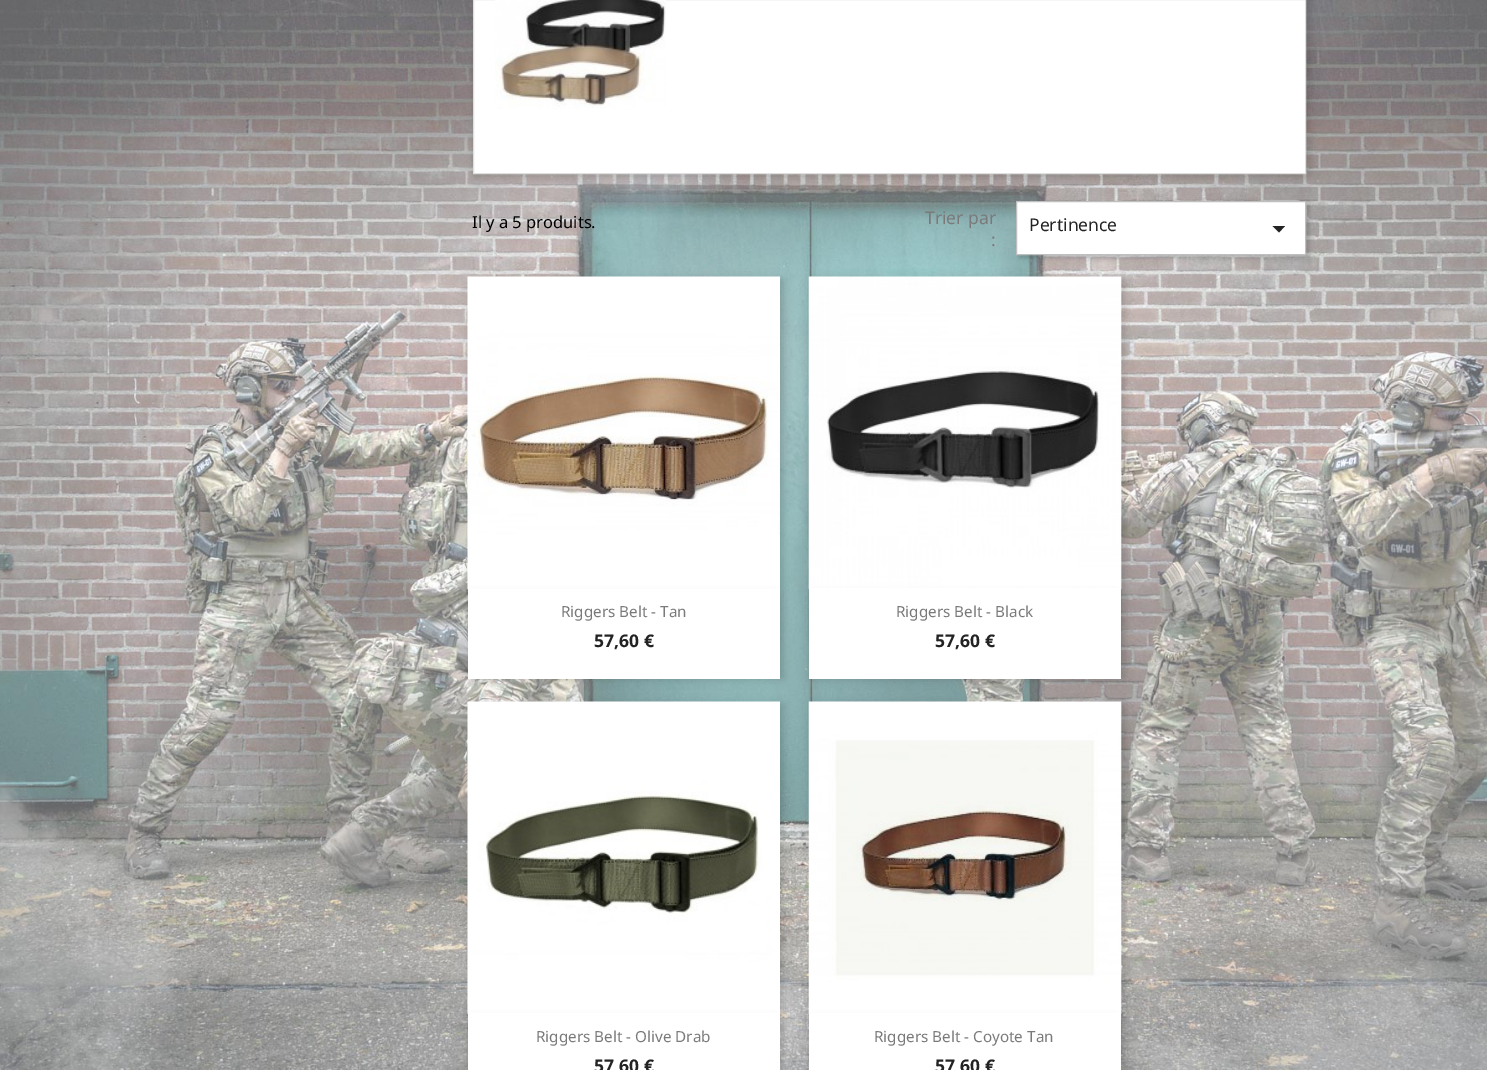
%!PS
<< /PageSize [1487 1070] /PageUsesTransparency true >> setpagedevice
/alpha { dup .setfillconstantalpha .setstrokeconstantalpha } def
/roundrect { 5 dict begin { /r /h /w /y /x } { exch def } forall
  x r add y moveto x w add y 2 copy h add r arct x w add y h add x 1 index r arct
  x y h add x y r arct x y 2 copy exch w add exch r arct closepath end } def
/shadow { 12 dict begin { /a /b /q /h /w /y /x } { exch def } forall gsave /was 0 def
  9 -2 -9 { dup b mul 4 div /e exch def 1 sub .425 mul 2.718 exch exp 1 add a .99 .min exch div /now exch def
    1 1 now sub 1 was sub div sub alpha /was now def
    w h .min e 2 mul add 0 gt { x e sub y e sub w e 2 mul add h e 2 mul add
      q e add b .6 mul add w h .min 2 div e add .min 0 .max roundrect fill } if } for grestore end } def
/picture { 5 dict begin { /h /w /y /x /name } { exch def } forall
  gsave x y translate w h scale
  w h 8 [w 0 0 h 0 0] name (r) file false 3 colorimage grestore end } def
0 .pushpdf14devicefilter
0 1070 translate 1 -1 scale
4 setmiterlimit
1 setgray
0 0 1487 1070 rectfill
(img1.rgb) 0 0 1487 1070 picture
0 setgray
475 -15 834 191 0 5 0.2 shadow
1 setgray
newpath 473.5 -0.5 moveto 1305.5 -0.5 lineto 1305.5 173.5 lineto 473.5 173.5 lineto closepath gsave fill grestore
0.875 setgray
stroke
(img2.rgb) 495 0 171 109 picture
/NotoSans-Regular [16.5 0 0 -16.5 0 0] selectfont
0 setgray
472 228 moveto (Il y a 5 produits.) show
/NotoSans-Regular [17.5 0 0 -17.5 0 0] selectfont
0.478 setgray
925 224 moveto (Trier par) show
991 246 moveto (:) show
0 setgray
1019 204 290 54 0 2.5 0.2 shadow
1 setgray
newpath 1016.5 201.5 moveto 1305.5 201.5 lineto 1305.5 254.5 lineto 1016.5 254.5 lineto closepath gsave fill grestore
0.749 setgray
stroke
0.137 setgray
1029 231 moveto (Pertinence) show
newpath 1272.5 226 moveto 1285 226 lineto 1279 232.5 lineto closepath fill
0 setgray
470 280 313 398 0 5 0.2 shadow
(img3.rgb) 467 276 313 313 picture
474 599 300 41 0 6 0.2 shadow
1 setgray
468 589 312 90 rectfill
/NotoSans-Regular [15.25 0 0 -15.25 0 0] selectfont
0.478 setgray
561 617 moveto (Riggers Belt - Tan) show
/NotoSans-Bold [17.5 0 0 -17.5 0 0] selectfont
0.137 setgray
594 647 moveto (57,60 €) show
0 setgray
811 280 313 398 0 5 0.2 shadow
(img4.rgb) 808 276 314 313 picture
815 599 300 41 0 6 0.2 shadow
1 setgray
809 588 312 91 rectfill
/NotoSans-Regular [15.25 0 0 -15.25 0 0] selectfont
0.478 setgray
896 617 moveto (Riggers Belt - Black) show
/NotoSans-Bold [17.5 0 0 -17.5 0 0] selectfont
0.137 setgray
935 647 moveto (57,60 €) show
0 setgray
470 705 313 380 0 5 0.2 shadow
(img5.rgb) 467 701 313 313 picture
474 1023 300 42 0 6 0.2 shadow
1 setgray
468 1013 312 57 rectfill
/NotoSans-Regular [15.25 0 0 -15.25 0 0] selectfont
0.478 setgray
536 1042 moveto (Riggers Belt - Olive Drab) show
/NotoSans-Bold [17.5 0 0 -17.5 0 0] selectfont
0.137 setgray
594 1072 moveto (57,60 €) show
0 setgray
811 705 313 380 0 5 0.2 shadow
(img6.rgb) 808 701 314 313 picture
815 1023 300 42 0 6 0.2 shadow
1 setgray
809 1013 312 57 rectfill
/NotoSans-Regular [15.25 0 0 -15.25 0 0] selectfont
0.478 setgray
874 1042 moveto (Riggers Belt - Coyote Tan) show
/NotoSans-Bold [17.5 0 0 -17.5 0 0] selectfont
0.137 setgray
935 1072 moveto (57,60 €) show
.poppdf14devicefilter showpage
